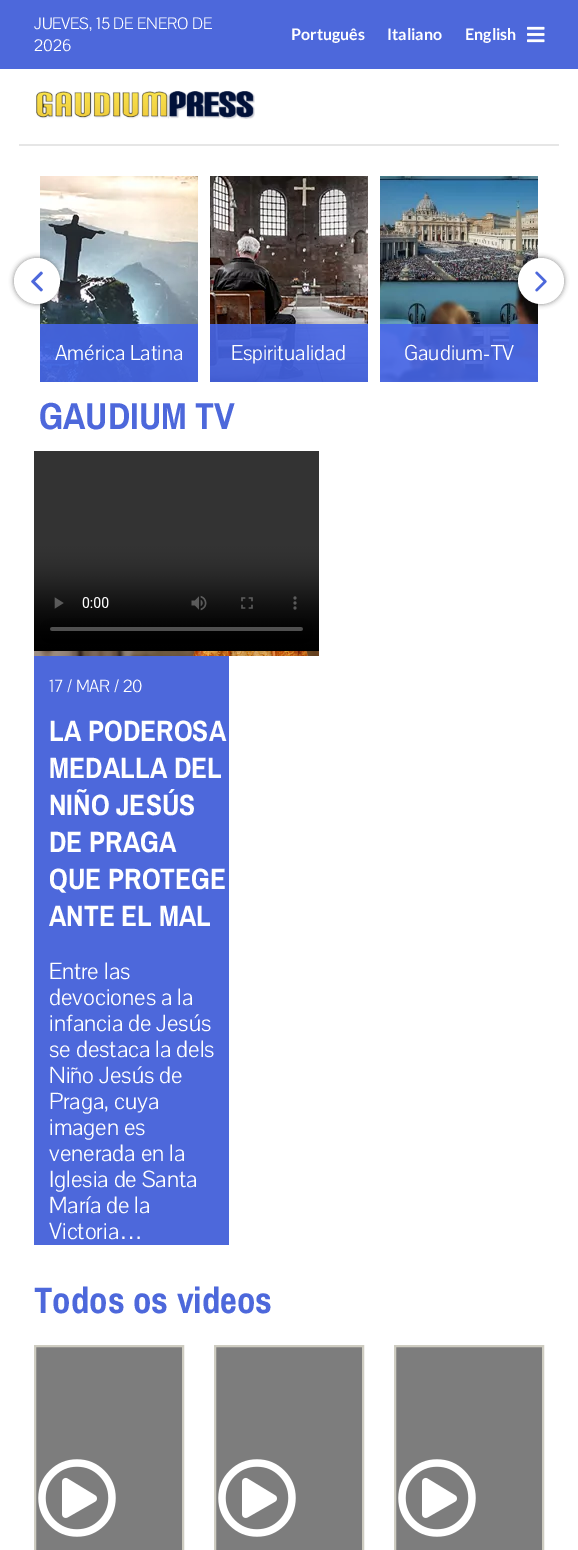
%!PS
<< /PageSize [578 1550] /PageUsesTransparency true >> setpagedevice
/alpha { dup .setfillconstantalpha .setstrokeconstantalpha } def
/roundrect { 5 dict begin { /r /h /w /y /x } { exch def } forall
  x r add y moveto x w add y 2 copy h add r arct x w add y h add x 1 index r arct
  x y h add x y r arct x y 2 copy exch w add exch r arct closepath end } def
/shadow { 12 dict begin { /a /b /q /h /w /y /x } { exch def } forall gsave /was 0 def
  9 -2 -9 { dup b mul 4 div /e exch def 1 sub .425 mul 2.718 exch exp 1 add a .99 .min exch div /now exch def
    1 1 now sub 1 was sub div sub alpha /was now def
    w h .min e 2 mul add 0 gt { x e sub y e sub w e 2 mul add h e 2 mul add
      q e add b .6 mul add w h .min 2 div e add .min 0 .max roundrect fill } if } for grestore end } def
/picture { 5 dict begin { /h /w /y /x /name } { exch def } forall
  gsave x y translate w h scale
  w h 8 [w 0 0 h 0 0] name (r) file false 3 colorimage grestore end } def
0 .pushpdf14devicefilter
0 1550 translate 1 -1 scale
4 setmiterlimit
1 setgray
0 0 578 1550 rectfill
0.302 0.408 0.859 setrgbcolor
0 0 578 69 rectfill
/Pavanam-Regular [17 0 0 -17 0 0] selectfont
1 setgray
34 29 moveto (JUEVES, 15 DE ENERO DE) show
34 51 moveto (2026) show
/Lato-Bold [16 0 0 -16 0 0] selectfont
291 40 moveto (Português) show
387 40 moveto (Italiano) show
465 40 moveto (English) show
(img1.rgb) 527 26 18 17 picture
0.902 setgray
19 144 540 2 rectfill
(img2.rgb) 36 91 219 28 picture
(img5.rgb) 40 176 158 206 picture
0 setgray
14 258 46 46 23 2.5 0.5 shadow
1 setgray
newpath 37 281 23 0 360 arc closepath fill
(img3.rgb) 31 271 12 21 picture
(img7.rgb) 380 176 158 206 picture
0 setgray
518 258 46 46 23 2.5 0.5 shadow
1 setgray
newpath 541 281 23 0 360 arc closepath fill
(img4.rgb) 535 271 12 21 picture
0.9 alpha
0.271 0.396 0.902 setrgbcolor
40 324 158 58 rectfill
/Pavanam-Regular [22 0 0 -22 0 0] selectfont
1 alpha
1 setgray
55 360 moveto (América Latina) show
(img6.rgb) 210 176 158 206 picture
0.9 alpha
0.271 0.396 0.902 setrgbcolor
210 324 158 58 rectfill
1 alpha
1 setgray
231 360 moveto (Espiritualidad) show
0.9 alpha
0.271 0.396 0.902 setrgbcolor
380 324 158 58 rectfill
1 alpha
1 setgray
404 360 moveto (Gaudium-TV) show
/PragatiNarrow-Bold [41 0 0 -41 0 0] selectfont
0.302 0.408 0.859 setrgbcolor
39 429 moveto (GAUDIUM TV) show
(img8.rgb) 34 651 285 5 picture
(img9.rgb) 34 451 285 200 picture
34 656 195 589 rectfill
/Pavanam-Regular [18 0 0 -18 0 0] selectfont
1 setgray
49 692 moveto (17 / MAR / 20) show
/PragatiNarrow-Bold [32 0 0 -32 0 0] selectfont
49 741 moveto (LA PODEROSA) show
49 778 moveto (MEDALLA DEL) show
49 815 moveto (NIÑO JESÚS) show
49 852 moveto (DE PRAGA) show
49 889 moveto (QUE PROTEGE) show
49 926 moveto (ANTE EL MAL) show
/Pavanam-Regular [24 0 0 -24 0 0] selectfont
49 979 moveto (Entre las) show
49 1005 moveto (devociones a la) show
49 1031 moveto (infancia de Jesús) show
49 1057 moveto (se destaca la dels) show
49 1083 moveto (Niño Jesús de) show
49 1109 moveto (Praga, cuya) show
49 1135 moveto (imagen es) show
49 1161 moveto (venerada en la) show
49 1187 moveto (Iglesia de Santa) show
49 1213 moveto (María de la) show
49 1239 moveto (Victoria) show
/LiberationSans-Regular [24 0 0 -24 0 0] selectfont
119 1239 moveto (…) show
/PragatiNarrow-Bold [40 0 0 -40 0 0] selectfont
0.302 0.408 0.859 setrgbcolor
34 1313 moveto (Todos os videos) show
0.49 setgray
newpath 35 1346 moveto 183 1346 lineto 183 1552 lineto 35 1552 lineto closepath gsave fill grestore
0.808 0.8 0.757 setrgbcolor
2 setlinewidth
stroke
(img10.rgb) 38 1459 78 78 picture
0.49 setgray
newpath 215 1346 moveto 363 1346 lineto 363 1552 lineto 215 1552 lineto closepath gsave fill grestore
0.808 0.8 0.757 setrgbcolor
stroke
(img10.rgb) 218 1459 78 78 picture
0.49 setgray
newpath 395 1346 moveto 543 1346 lineto 543 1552 lineto 395 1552 lineto closepath gsave fill grestore
0.808 0.8 0.757 setrgbcolor
stroke
(img10.rgb) 398 1459 78 78 picture
.poppdf14devicefilter showpage
